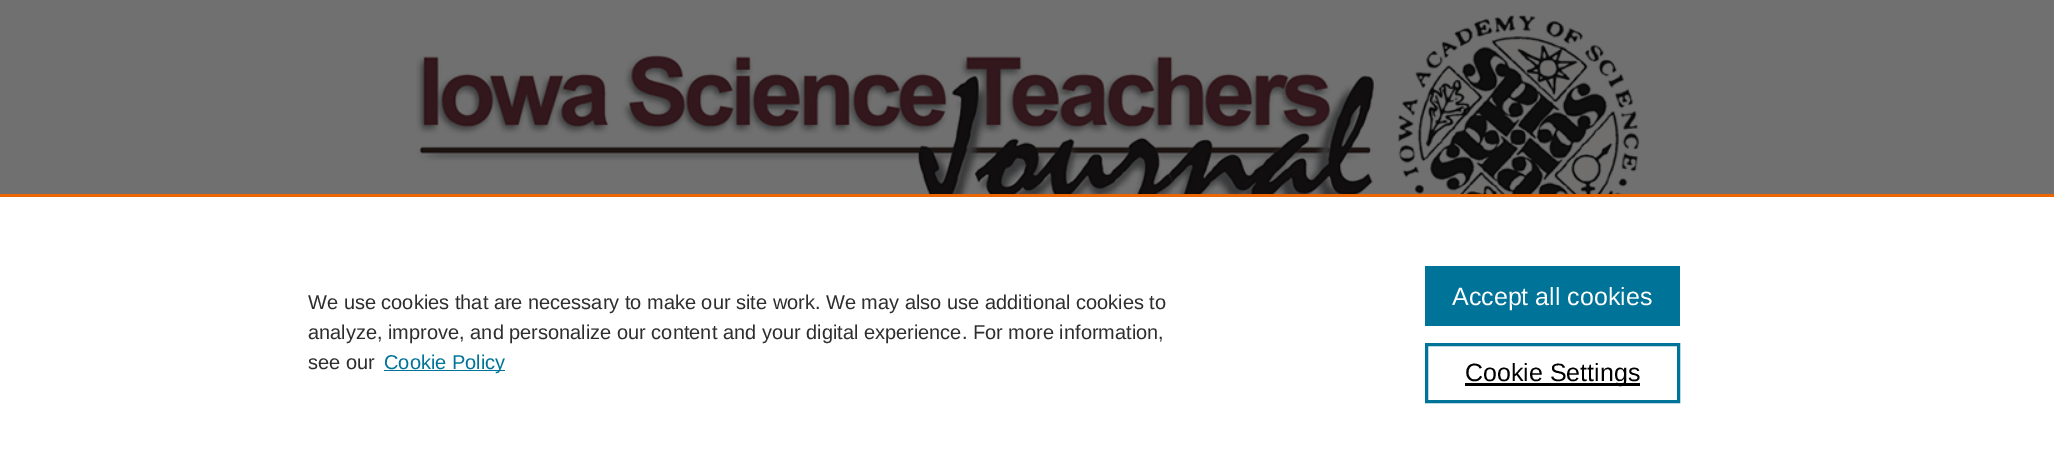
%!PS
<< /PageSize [2054 468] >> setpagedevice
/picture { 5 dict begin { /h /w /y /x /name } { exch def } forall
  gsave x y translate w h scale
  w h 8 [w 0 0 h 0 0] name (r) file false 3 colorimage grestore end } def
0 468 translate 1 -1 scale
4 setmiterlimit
0.439 setgray
0 0 2054 468 rectfill
(img1.rgb) 415 15 1225 179 picture
(img2.rgb) 1383 17 257 177 picture
1 setgray
0 197 2054 271 rectfill
0.922 0.396 0 setrgbcolor
0 194 2054 3 rectfill
/LiberationSans-Regular [20 0 0 -20 0 0] selectfont
0.18 setgray
308 309 moveto (We use cookies that are necessary to make our site work. We may also use additional cookies to) show
308 339 moveto (analyze, improve, and personalize our content and your digital experience. For more information,) show
308 369 moveto (see our) show
0 0.451 0.596 setrgbcolor
384 370 121 1 rectfill
384 369 moveto (Cookie Policy) show
1425 266 255 60 rectfill
/LiberationSans-Regular [25 0 0 -25 0 0] selectfont
1 setgray
1452 305 moveto (Accept all cookies) show
0 0.451 0.596 setrgbcolor
3 setlinewidth
1426.5 344.5 252 57 rectstroke
0 setgray
1465 383 175 3 rectfill
1465 381 moveto (Cookie Settings) show
showpage
